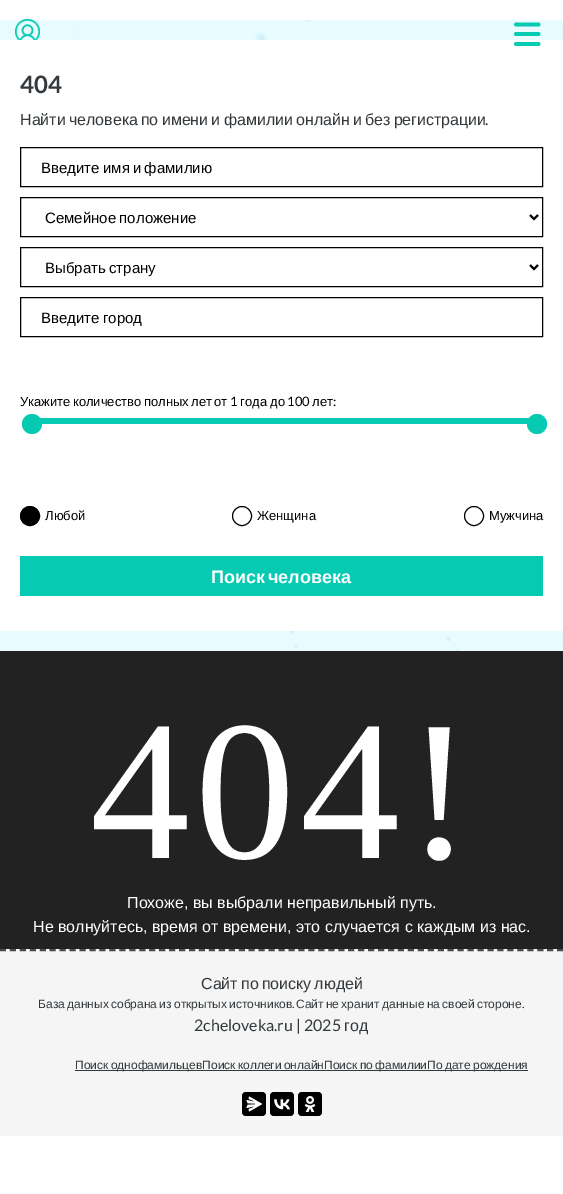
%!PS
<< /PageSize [563 1194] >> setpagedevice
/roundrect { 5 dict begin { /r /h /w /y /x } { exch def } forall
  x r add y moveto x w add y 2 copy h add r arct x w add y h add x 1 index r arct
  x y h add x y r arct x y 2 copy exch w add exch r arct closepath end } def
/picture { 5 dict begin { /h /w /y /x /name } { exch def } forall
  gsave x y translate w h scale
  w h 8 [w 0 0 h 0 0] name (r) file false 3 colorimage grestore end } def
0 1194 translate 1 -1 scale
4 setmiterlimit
1 setgray
0 0 563 1194 rectfill
0.91 0.988 1 setrgbcolor
0 20 563 631 rectfill
(img1.rgb) 15 19 25 21 picture
(img2.rgb) 75 20 385 631 picture
1 setgray
0 40 563 591 rectfill
0.027 0.792 0.698 setrgbcolor
3.8 setlinewidth
1 setlinecap
newpath 516 24.5 moveto 538.5 24.5 lineto 516 34 moveto 538.5 34 lineto 516 44 moveto 538.5 44 lineto stroke
/Lato-Bold [24 0 0 -24 0 0] selectfont
0.2 0.224 0.235 setrgbcolor
20 93 moveto (404) show
/LiberationSans-Regular [16 0 0 -16 0 0] selectfont
20 125 moveto -1.25 0 32 (Найти человека по имени и фамилии онлайн и без регистрации) widthshow
/Lato-Regular [16 0 0 -16 0 0] selectfont
485 125 moveto (.) show
0 setgray
1 setlinewidth
0 setlinecap
20.5 147.5 522 39 rectstroke
/LiberationSans-Regular [15 0 0 -15 0 0] selectfont
41 173 moveto -1 0 32 (Введите имя и фамилию) widthshow
20.5 197.5 522 39 rectstroke
2 setlinewidth
newpath 530 215 moveto 534 219 lineto 538 215 lineto stroke
45 223 moveto -1 0 32 (Семейное положение) widthshow
1 setlinewidth
20.5 247.5 522 39 rectstroke
2 setlinewidth
newpath 530 265 moveto 534 269 lineto 538 265 lineto stroke
45 273 moveto -1 0 32 (Выбрать страну) widthshow
1 setlinewidth
20.5 297.5 522 39 rectstroke
41 323 moveto -1 0 32 (Введите город) widthshow
/LiberationSans-Regular [13 0 0 -13 0 0] selectfont
20 406 moveto -1 0 32 (Укажите количество полных лет) widthshow
214 406 moveto (от) show
/Lato-Regular [13 0 0 -13 0 0] selectfont
230 406 moveto (1) show
/LiberationSans-Regular [13 0 0 -13 0 0] selectfont
240 406 moveto (года до) show
/Lato-Regular [13 0 0 -13 0 0] selectfont
287 406 moveto (100) show
/LiberationSans-Regular [13 0 0 -13 0 0] selectfont
312 406 moveto (лет) show
/Lato-Regular [13 0 0 -13 0 0] selectfont
333 406 moveto (:) show
0.027 0.792 0.698 setrgbcolor
40 418 497 6 rectfill
newpath 32 424 10 0 360 arc closepath fill
newpath 537 424 10 0 360 arc closepath fill
0 setgray
newpath 30 516 9.5 0 360 arc closepath gsave fill grestore
stroke
/LiberationSans-Regular [13 0 0 -13 0 0] selectfont
45 520 moveto (Любой) show
newpath 242 516 9.5 0 360 arc closepath stroke
257 520 moveto (Женщина) show
newpath 474 516 9.5 0 360 arc closepath stroke
489 520 moveto (Мужчина) show
0.027 0.792 0.698 setrgbcolor
20 556 523 40 rectfill
/LiberationSans-Bold [18 0 0 -18 0 0] selectfont
1 setgray
211 583 moveto -2 0 32 (Поиск человека) widthshow
0.133 setgray
0 651 563 298 rectfill
/LiberationSerif-Regular [200 0 0 -200 0 0] selectfont
1 setgray
90 858 moveto 1 0 (4) ashow
195 858 moveto 1 0 (0) ashow
300 858 moveto 1 0 (4) ashow
406 858 moveto 1 0 (!) ashow
/LiberationSans-Regular [16 0 0 -16 0 0] selectfont
127 908 moveto (Похоже, вы выбрали неправильный путь.) show
33 932 moveto (Не волнуйтесь, время от времени, это случается с каждым из нас.) show
0.961 setgray
0 949 563 187 rectfill
0.294 setgray
2 setlinewidth
[6 3.95] 0 setdash
newpath 0 950 moveto 563 950 lineto stroke
0.2 0.224 0.235 setrgbcolor
201 989 moveto -1.25 0 32 (Сайт по поиску людей) widthshow
/LiberationSans-Regular [12 0 0 -12 0 0] selectfont
38 1008 moveto -1 0 32 (База данных собрана из открытых источников) widthshow
/Lato-Regular [12 0 0 -12 0 0] selectfont
292 1008 moveto (.) show
/LiberationSans-Regular [12 0 0 -12 0 0] selectfont
296 1008 moveto -1 0 32 (Сайт не хранит данные на своей стороне) widthshow
/Lato-Regular [12 0 0 -12 0 0] selectfont
522 1008 moveto (.) show
/Lato-Regular [16 0 0 -16 0 0] selectfont
194 1031 moveto (2cheloveka.ru | 2025) show
/LiberationSans-Regular [16 0 0 -16 0 0] selectfont
344 1031 moveto (год) show
75 1070 453 1 rectfill
/LiberationSans-Regular [12 0 0 -12 0 0] selectfont
75 1069 moveto -1 0 32 (Поиск однофамильцевПоиск коллеги онлайнПоиск по фамилииПо дате рождения) widthshow
0 setgray
242 1092 24 24 4 roundrect fill
(img3.rgb) 246 1096 16 16 picture
270 1092 24 24 4 roundrect fill
(img4.rgb) 274 1099 16 11 picture
298 1092 24 24 4 roundrect fill
(img5.rgb) 304 1096 12 16 picture
showpage
